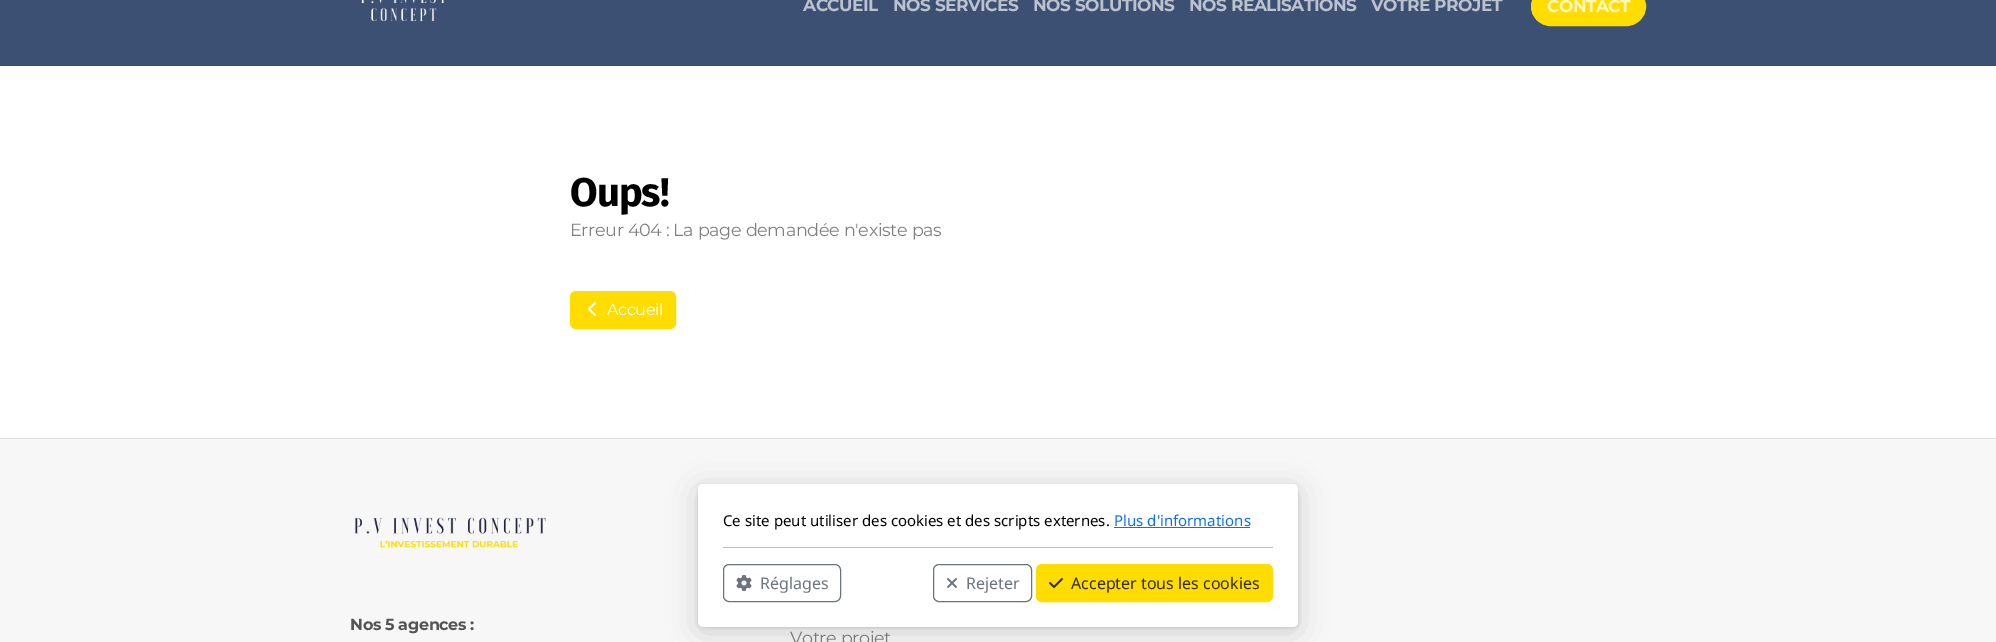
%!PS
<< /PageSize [1996 642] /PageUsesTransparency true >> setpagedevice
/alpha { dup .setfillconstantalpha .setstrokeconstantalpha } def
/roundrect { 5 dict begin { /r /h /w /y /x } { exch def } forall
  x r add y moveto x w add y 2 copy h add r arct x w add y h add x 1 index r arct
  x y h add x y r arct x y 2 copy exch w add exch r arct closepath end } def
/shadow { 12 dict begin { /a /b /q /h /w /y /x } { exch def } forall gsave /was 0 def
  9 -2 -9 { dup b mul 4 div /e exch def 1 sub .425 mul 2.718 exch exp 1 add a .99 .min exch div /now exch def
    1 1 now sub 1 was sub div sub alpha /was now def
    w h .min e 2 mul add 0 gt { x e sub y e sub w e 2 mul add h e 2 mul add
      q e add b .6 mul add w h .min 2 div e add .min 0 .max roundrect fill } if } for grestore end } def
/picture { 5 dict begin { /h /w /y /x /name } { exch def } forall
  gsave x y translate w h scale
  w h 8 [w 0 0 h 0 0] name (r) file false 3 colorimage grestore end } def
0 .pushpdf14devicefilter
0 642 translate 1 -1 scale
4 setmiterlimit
1 setgray
0 0 1996 642 rectfill
0.235 0.314 0.451 setrgbcolor
0 0 1996 66 rectfill
(img1.rgb) 361 0 83 22 picture
/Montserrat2-Thin [17 0 0 -17 0 0] selectfont
0.733 0.761 0.808 setrgbcolor
803 11 moveto -0.5 0 (ACCUEIL) ashow
893 11 moveto -0.5 0 (NOS SERVICES) ashow
1033 11 moveto -0.5 0 (NOS SOLUTIONS) ashow
1189 11 moveto -0.5 0 (NOS RÉALISATIONS) ashow
1371 11 moveto -0.5 0 (VOTRE PROJET) ashow
1 0.867 0 setrgbcolor
1531.5 -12.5 114 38 19 roundrect gsave fill grestore
stroke
1 0.969 0.749 setrgbcolor
1547 12 moveto -0.5 0 (CONTACT) ashow
/FiraSans-Bold [40 0 0 -40 0 0] selectfont
0 setgray
570 206 moveto -1 0 (Oups!) ashow
/Montserrat-Thin [17.6 0 0 -17.6 0 0] selectfont
0.502 setgray
570 236 moveto -0.35 0 (Erreur 404 : La page demandée n'existe pas) ashow
1 0.867 0 setrgbcolor
570.5 291.5 105 37 5.5 roundrect gsave fill grestore
stroke
(img2.rgb) 588 302 8 14 picture
/Montserrat-Thin [16 0 0 -16 0 0] selectfont
1 setgray
607 315 moveto -0.35 0 (Accueil) ashow
0.969 setgray
0 439 1996 203 rectfill
0.871 0.886 0.902 setrgbcolor
0 438 1996 1 rectfill
(img3.rgb) 354 517 192 31 picture
/Montserrat2-Thin [16 0 0 -16 0 0] selectfont
0.329 setgray
350 630 moveto -0.35 0 (Nos 5 agences :) ashow
/Montserrat-Thin [17.6 0 0 -17.6 0 0] selectfont
0.502 setgray
790 644 moveto -0.35 0 (Votre projet) ashow
0 setgray
698 489 600 143 5 15 0.16 shadow
698 485 600 143 5 1.5 0.1 shadow
1 setgray
698 484 600 143 5 roundrect fill
/NotoSans-Regular [15 0 0 -15 0 0] selectfont
0 setgray
723 526 moveto (Ce site peut utiliser des cookies et des scripts externes.) show
0.051 0.431 0.992 setrgbcolor
1114 526 moveto (Plus d'informations) show
1114 527 136 1 rectfill
0.749 setgray
723 547 550 1 rectfill
0.424 0.459 0.49 setrgbcolor
723.5 564.5 117 37 5.5 roundrect stroke
(img4.rgb) 736 575 16 16 picture
/NotoSans-Regular [16 0 0 -16 0 0] selectfont
760 589 moveto (Réglages) show
933.5 564.5 98 37 5.5 roundrect stroke
(img5.rgb) 947 578 10 10 picture
966 589 moveto (Rejeter) show
1 0.867 0 setrgbcolor
1036.5 564.5 236 37 5.5 roundrect gsave fill grestore
stroke
(img6.rgb) 1049 578 14 10 picture
0.2 0.173 0 setrgbcolor
1071 589 moveto (Accepter tous les cookies) show
.poppdf14devicefilter showpage
